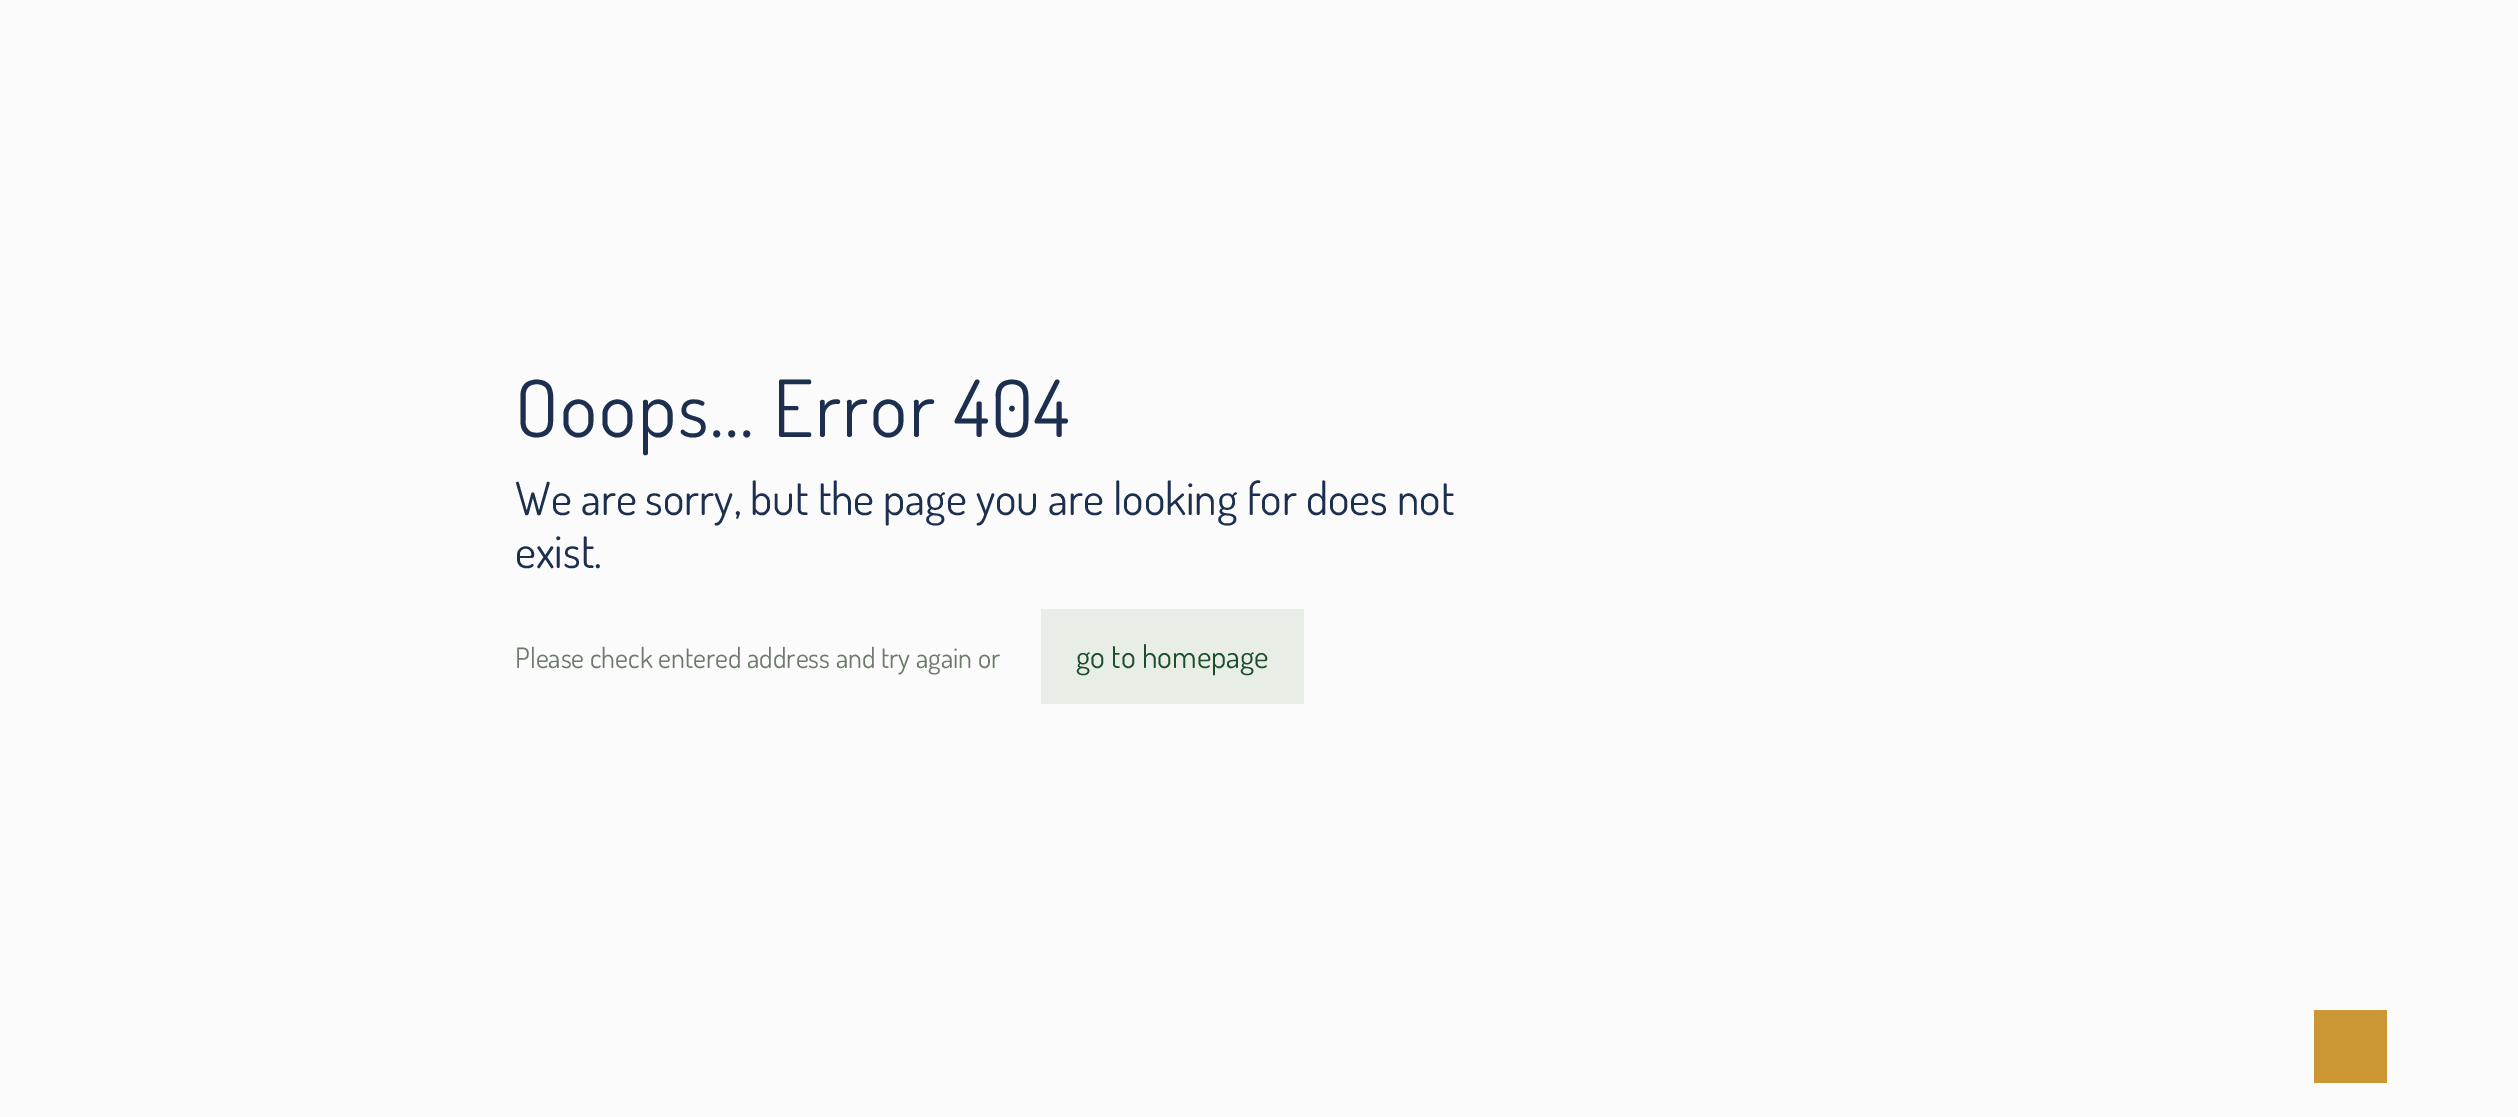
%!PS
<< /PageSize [2518 1117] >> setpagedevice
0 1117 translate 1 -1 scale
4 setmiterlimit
0.98 0.984 0.98 setrgbcolor
0 0 2518 1117 rectfill
/Dosis-Regular [78.75 0 0 -78.75 0 0] selectfont
0.11 0.184 0.306 setrgbcolor
515 437 moveto 1.75 0 (Ooops... Error 404) ashow
/Dosis-Regular [45.5 0 0 -45.5 0 0] selectfont
515 515 moveto (We are sorry, but the page you are looking for does not) show
515 568 moveto (exist.) show
/Dosis-Regular [28 0 0 -28 0 0] selectfont
0.42 0.478 0.42 setrgbcolor
515 668 moveto (Please check entered address and try again or) show
0.91 0.929 0.902 setrgbcolor
1041 609 263 95 rectfill
/Dosis-Regular [31.5 0 0 -31.5 0 0] selectfont
0.11 0.306 0.165 setrgbcolor
1076 668 moveto (go to homepage) show
0.796 0.592 0.204 setrgbcolor
2314 1010 73 73 rectfill
showpage
